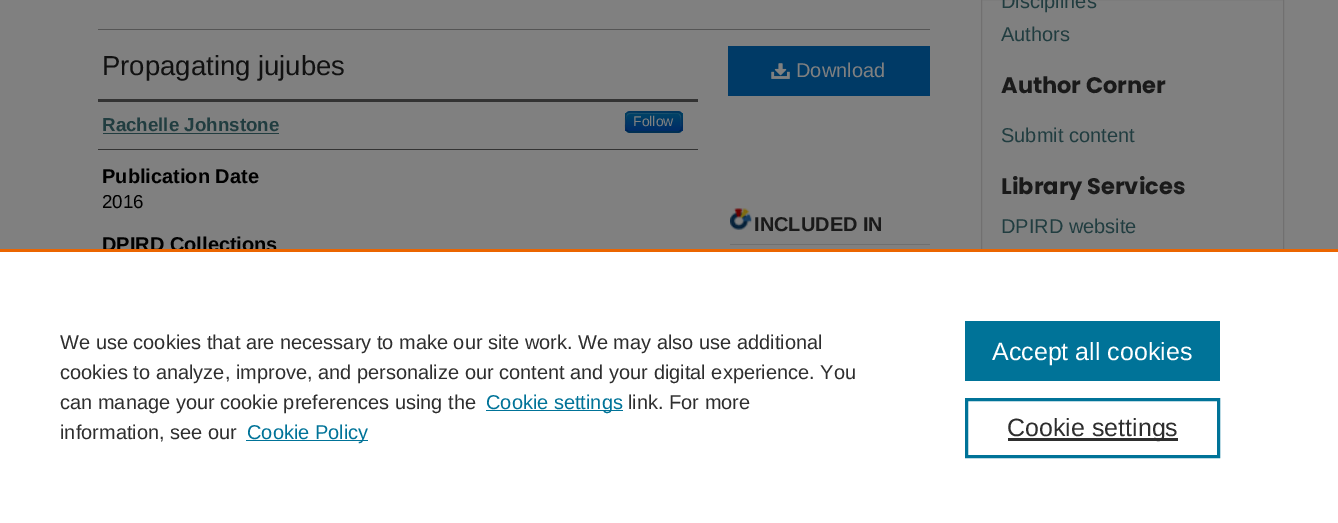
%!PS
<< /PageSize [1338 523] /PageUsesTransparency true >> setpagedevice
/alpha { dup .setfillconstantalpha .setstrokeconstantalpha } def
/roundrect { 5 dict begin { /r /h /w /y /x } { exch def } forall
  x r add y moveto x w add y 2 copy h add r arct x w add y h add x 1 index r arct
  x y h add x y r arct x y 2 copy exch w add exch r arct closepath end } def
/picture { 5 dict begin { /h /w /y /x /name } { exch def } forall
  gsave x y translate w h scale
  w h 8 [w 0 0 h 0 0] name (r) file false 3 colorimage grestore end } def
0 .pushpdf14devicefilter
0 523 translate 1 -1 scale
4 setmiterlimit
0.502 setgray
0 0 1338 523 rectfill
0.333 setgray
98 29 832 1 rectfill
/LiberationSans-Regular [27.5 0 0 -27.5 0 0] selectfont
0.067 setgray
102 75 moveto (Propagating jujubes) show
0.2 setgray
98 99 600 3 rectfill
98 149 600 1 rectfill
/LiberationSans-Bold [18.75 0 0 -18.75 0 0] selectfont
0.129 0.239 0.251 setrgbcolor
102 131 moveto (Rachelle Johnstone) show
103 133 176 1 rectfill
0 0.227 0.4 setrgbcolor
625 111 58 22 5 roundrect fill
gsave
625 111 58 22 5 roundrect clip newpath
gsave newpath 625 113 moveto 683 113 lineto 683 131 lineto 625 131 lineto closepath clip newpath
<< /ShadingType 2 /ColorSpace /DeviceRGB /Coords [654 113 654 131] /Extend [true true] /Function << /FunctionType 2 /Domain [0 1] /C0 [0 0.267 0.4] /C1 [0 0.169 0.4] /N 1 >> >> shfill grestore
grestore
0.2 alpha
0.502 setgray
newpath 630 114 moveto 662 114 lineto 679 114 681 109 681 127 curveto 681 114 684 113 669 113 curveto 638 113 lineto 629 113 626 111 626 120 curveto 626 129 lineto 626 125 624 114 630 114 curveto closepath fill
0.25 alpha
0 setgray
1.2 setlinewidth
newpath 680.5 130.5 moveto 680 131.5 678.5 132 677.5 132 curveto 630 132 lineto 629 132 627.5 131.5 627 130.5 curveto stroke
0.1 alpha
newpath 627 130.5 moveto 624.5 128.5 625.5 124.5 625.5 122 curveto 625.5 111 626.5 112 638 112 curveto 669.5 112 lineto 681 112 682 111 682 122 curveto 682 124.5 683 128.5 680.5 130.5 curveto stroke
/LiberationSans-Regular [14 0 0 -14 0 0] selectfont
1 alpha
0.502 setgray
633 126 moveto (Follow) show
/LiberationSans-Bold [20 0 0 -20 0 0] selectfont
0 setgray
102 183 moveto (Publication Date) show
/LiberationSans-Regular [18.75 0 0 -18.75 0 0] selectfont
102 208 moveto (2016) show
/LiberationSans-Bold [20 0 0 -20 0 0] selectfont
102 251 moveto (DPIRD Collections) show
0 0.227 0.4 setrgbcolor
728 46 202 50 rectfill
(img1.rgb) 771 63 19 16 picture
/LiberationSans-Regular [20 0 0 -20 0 0] selectfont
0.502 setgray
796 77 moveto (Download) show
(img2.rgb) 730 208 22 22 picture
0.435 setgray
730 244 200 1 rectfill
/LiberationSans-Bold [20 0 0 -20 0 0] selectfont
0.102 setgray
754 231 moveto (INCLUDED IN) show
0.443 0.439 0.439 setrgbcolor
1 setlinewidth
981.5 -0.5 302 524 rectstroke
/LiberationSans-Regular [20 0 0 -20 0 0] selectfont
0.129 0.239 0.251 setrgbcolor
1001 8 moveto (Disciplines) show
1001 41 moveto (Authors) show
/Poppins-Bold [22.5 0 0 -22.5 0 0] selectfont
0.102 setgray
1001 93 moveto (Author Corner) show
/LiberationSans-Regular [20 0 0 -20 0 0] selectfont
0.129 0.239 0.251 setrgbcolor
1001 142 moveto (Submit content) show
/Poppins-Bold [22.5 0 0 -22.5 0 0] selectfont
0.102 setgray
1001 194 moveto (Library Services) show
/LiberationSans-Regular [20 0 0 -20 0 0] selectfont
0.129 0.239 0.251 setrgbcolor
1001 233 moveto (DPIRD website) show
1 setgray
0 252 1338 271 rectfill
0.922 0.396 0 setrgbcolor
0 249 1338 3 rectfill
0.18 setgray
60 349 moveto (We use cookies that are necessary to make our site work. We may also use additional) show
60 379 moveto (cookies to analyze, improve, and personalize our content and your digital experience. You) show
60 409 moveto (can manage your cookie preferences using the) show
0 0.451 0.596 setrgbcolor
486 410 137 1 rectfill
486 409 moveto (Cookie settings) show
0.18 setgray
628 409 moveto (link. For more) show
60 439 moveto (information, see our) show
0 0.451 0.596 setrgbcolor
246 440 122 1 rectfill
247 439 moveto (Cookie Policy) show
965 321 255 60 rectfill
/LiberationSans-Regular [25 0 0 -25 0 0] selectfont
1 setgray
992 360 moveto (Accept all cookies) show
0 0.451 0.596 setrgbcolor
3 setlinewidth
966.5 399.5 252 57 rectstroke
0.18 setgray
1008 438 170 3 rectfill
1007 436 moveto (Cookie settings) show
.poppdf14devicefilter showpage
